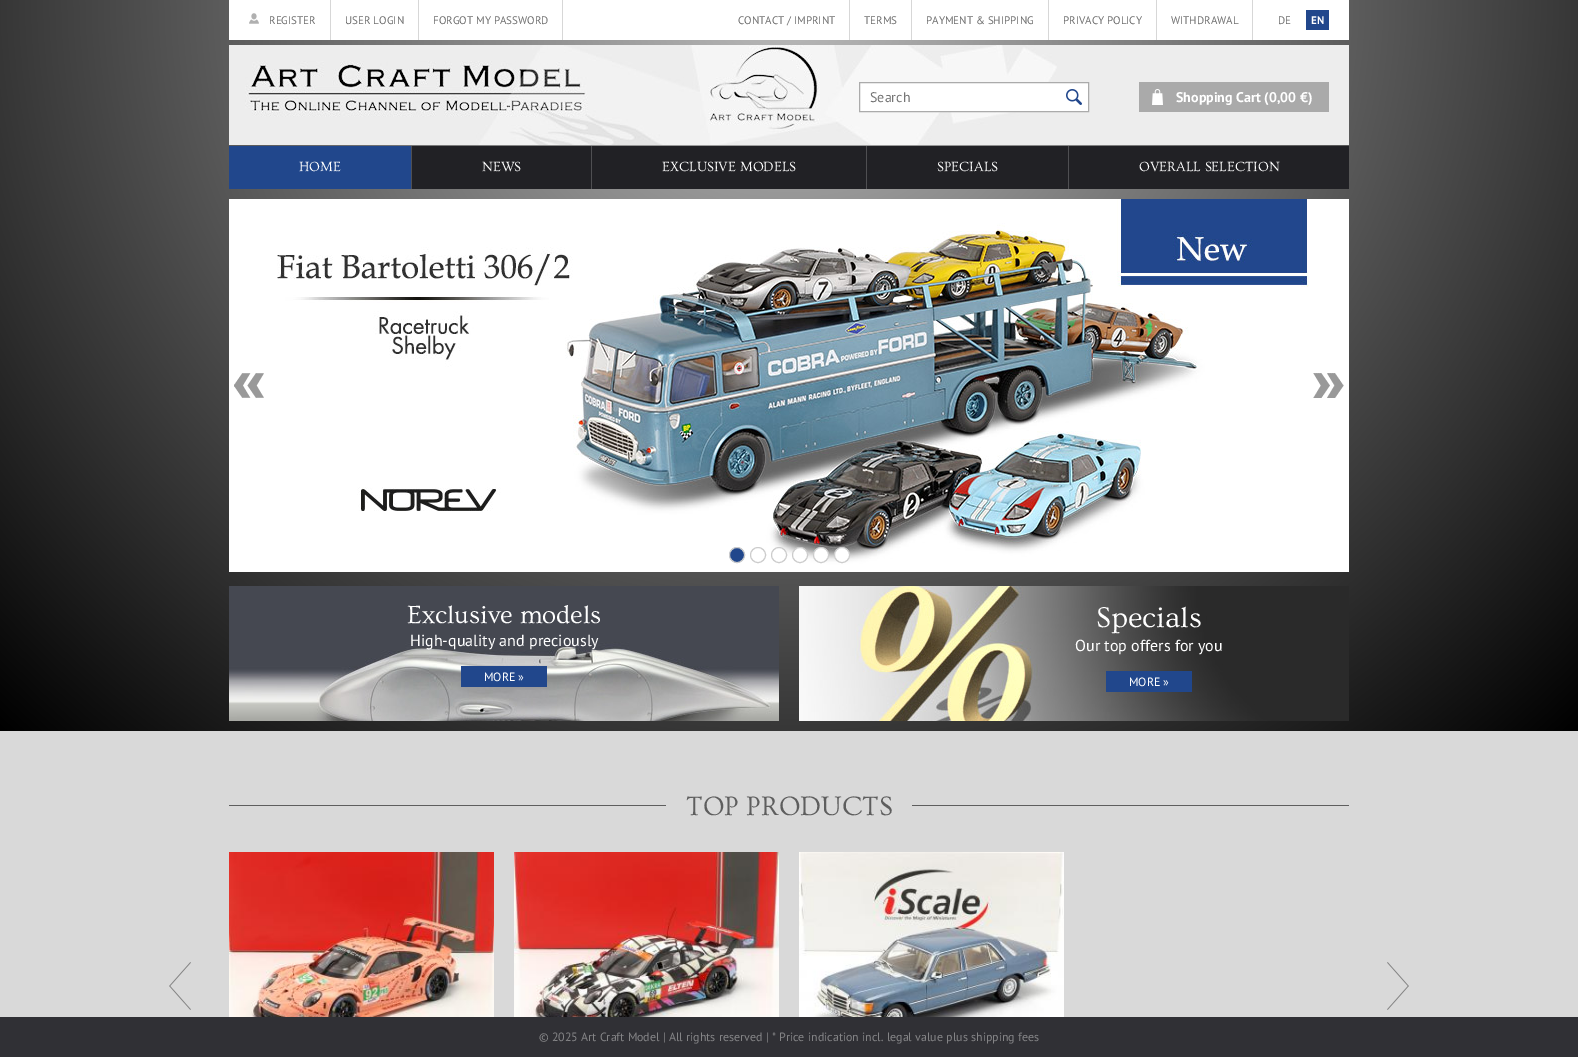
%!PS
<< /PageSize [1578 1057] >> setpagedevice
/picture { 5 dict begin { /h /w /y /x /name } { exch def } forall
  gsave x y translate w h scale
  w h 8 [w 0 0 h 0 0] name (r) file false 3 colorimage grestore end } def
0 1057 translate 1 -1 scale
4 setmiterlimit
0.851 setgray
0 0 1578 1057 rectfill
gsave newpath 0 0 moveto 1578 0 lineto 1578 731 lineto 0 731 lineto closepath clip newpath 789 0 translate 1116 1034 scale
<< /ShadingType 3 /ColorSpace /DeviceRGB /Coords [0 0 0 0 0 1] /Extend [true true] /Function << /FunctionType 2 /Domain [0 1] /C0 [0.733 0.733 0.733] /C1 [0 0 0] /N 1 >> >> shfill grestore
1 setgray
229 0 1120 40 rectfill
(img1.rgb) 249 13 10 11 picture
0.843 setgray
330 0 1 40 rectfill
/PTSans-Regular [11 0 0 -11 0 0] selectfont
0.435 setgray
269 24 moveto (REGISTER) show
0.843 setgray
418 0 1 40 rectfill
0.435 setgray
345 24 moveto (USER LOGIN) show
0.843 setgray
562 0 1 40 rectfill
0.435 setgray
433 24 moveto (FORGOT MY PASSWORD) show
0.843 setgray
849 0 1 40 rectfill
0.435 setgray
738 24 moveto (CONTACT / IMPRINT) show
0.843 setgray
911 0 1 40 rectfill
0.435 setgray
864 24 moveto (TERMS) show
0.843 setgray
1048 0 1 40 rectfill
0.435 setgray
926 24 moveto (PAYMENT & SHIPPING) show
0.843 setgray
1156 0 1 40 rectfill
0.435 setgray
1063 24 moveto (PRIVACY POLICY) show
0.843 setgray
1252 0 1 40 rectfill
0.435 setgray
1171 24 moveto (WITHDRAWAL) show
1278 24 moveto (DE) show
0.129 0.278 0.549 setrgbcolor
1306 10 23 20 rectfill
/PTSans-Bold [11 0 0 -11 0 0] selectfont
1 setgray
1311 24 moveto (EN) show
0.929 setgray
229 45 1120 100 rectfill
(img2.rgb) 245 45 812 100 picture
1 setgray
newpath 859.5 82.5 moveto 1088.5 82.5 lineto 1088.5 111.5 lineto 859.5 111.5 lineto closepath gsave fill grestore
0.671 setgray
stroke
/PTSans-Regular [14 0 0 -14 0 0] selectfont
0.459 setgray
870 102 moveto (Search) show
(img3.rgb) 1066 89 16 16 picture
0.667 setgray
1139 82 190 30 rectfill
(img4.rgb) 1152 89 11 16 picture
/PTSans-Bold [14 0 0 -14 0 0] selectfont
1 setgray
1176 102 moveto (Shopping Cart \(0,00 €\)) show
0.129 0.129 0.145 setrgbcolor
412 146 937 43 rectfill
0.129 0.278 0.549 setrgbcolor
229 146 182 43 rectfill
0.31 0.31 0.322 setrgbcolor
411 146 1 43 rectfill
/Ovo-Regular [14 0 0 -14 0 0] selectfont
1 setgray
299 171 moveto (HOME) show
0.31 0.31 0.322 setrgbcolor
591 146 1 43 rectfill
1 setgray
482 171 moveto (NEWS) show
0.31 0.31 0.322 setrgbcolor
866 146 1 43 rectfill
1 setgray
662 171 moveto (EXCLUSIVE MODELS) show
0.31 0.31 0.322 setrgbcolor
1068 146 1 43 rectfill
1 setgray
937 171 moveto (SPECIALS) show
1139 171 moveto (OVERALL SELECTION) show
(img5.rgb) 229 199 1120 373 picture
(img6.rgb) 234 373 30 25 picture
(img7.rgb) 1313 373 31 25 picture
0.129 0.278 0.549 setrgbcolor
newpath 737 555 7.5 0 360 arc closepath gsave fill grestore
0.8 setgray
stroke
newpath 758 555 7.5 0 360 arc closepath stroke
1 setgray
newpath 779 555 7.5 0 360 arc closepath gsave fill grestore
0.8 setgray
stroke
1 setgray
newpath 800 555 7.5 0 360 arc closepath gsave fill grestore
0.8 setgray
stroke
1 setgray
newpath 821 555 7.5 0 360 arc closepath gsave fill grestore
0.8 setgray
stroke
1 setgray
newpath 842 555 7.5 0 360 arc closepath gsave fill grestore
0.8 setgray
stroke
(img8.rgb) 229 586 550 135 picture
/Ovo-Regular [26 0 0 -26 0 0] selectfont
1 setgray
407 623 moveto (Exclusive models) show
/PTSans-Regular [16 0 0 -16 0 0] selectfont
410 646 moveto (High-quality and preciously) show
0.129 0.278 0.549 setrgbcolor
461 666 86 21 rectfill
/PTSans-Regular [12 0 0 -12 0 0] selectfont
1 setgray
484 681 moveto (MORE ») show
(img9.rgb) 799 586 550 135 picture
/Ovo-Regular [30 0 0 -30 0 0] selectfont
1096 627 moveto (Specials) show
/PTSans-Regular [16 0 0 -16 0 0] selectfont
1075 651 moveto (Our top offers for you) show
0.129 0.278 0.549 setrgbcolor
1106 671 86 21 rectfill
/PTSans-Regular [12 0 0 -12 0 0] selectfont
1 setgray
1129 686 moveto (MORE ») show
0.369 setgray
229 805 1120 1 rectfill
0.851 setgray
666 805 246 1 rectfill
/Ovo-Regular [28 0 0 -28 0 0] selectfont
0.369 setgray
686 815 moveto (TOP PRODUCTS) show
(img10.rgb) 169 962 22 48 picture
(img11.rgb) 229 852 265 165 picture
(img12.rgb) 514 852 265 165 picture
(img13.rgb) 799 852 265 165 picture
(img14.rgb) 1387 962 22 48 picture
0.188 0.188 0.208 setrgbcolor
0 1017 1578 40 rectfill
/PTSans-Regular [12 0 0 -12 0 0] selectfont
0.518 0.518 0.525 setrgbcolor
539 1041 moveto (© 2025 Art Craft Model | All rights reserved | * Price indication incl. legal value plus shipping fees) show
showpage
